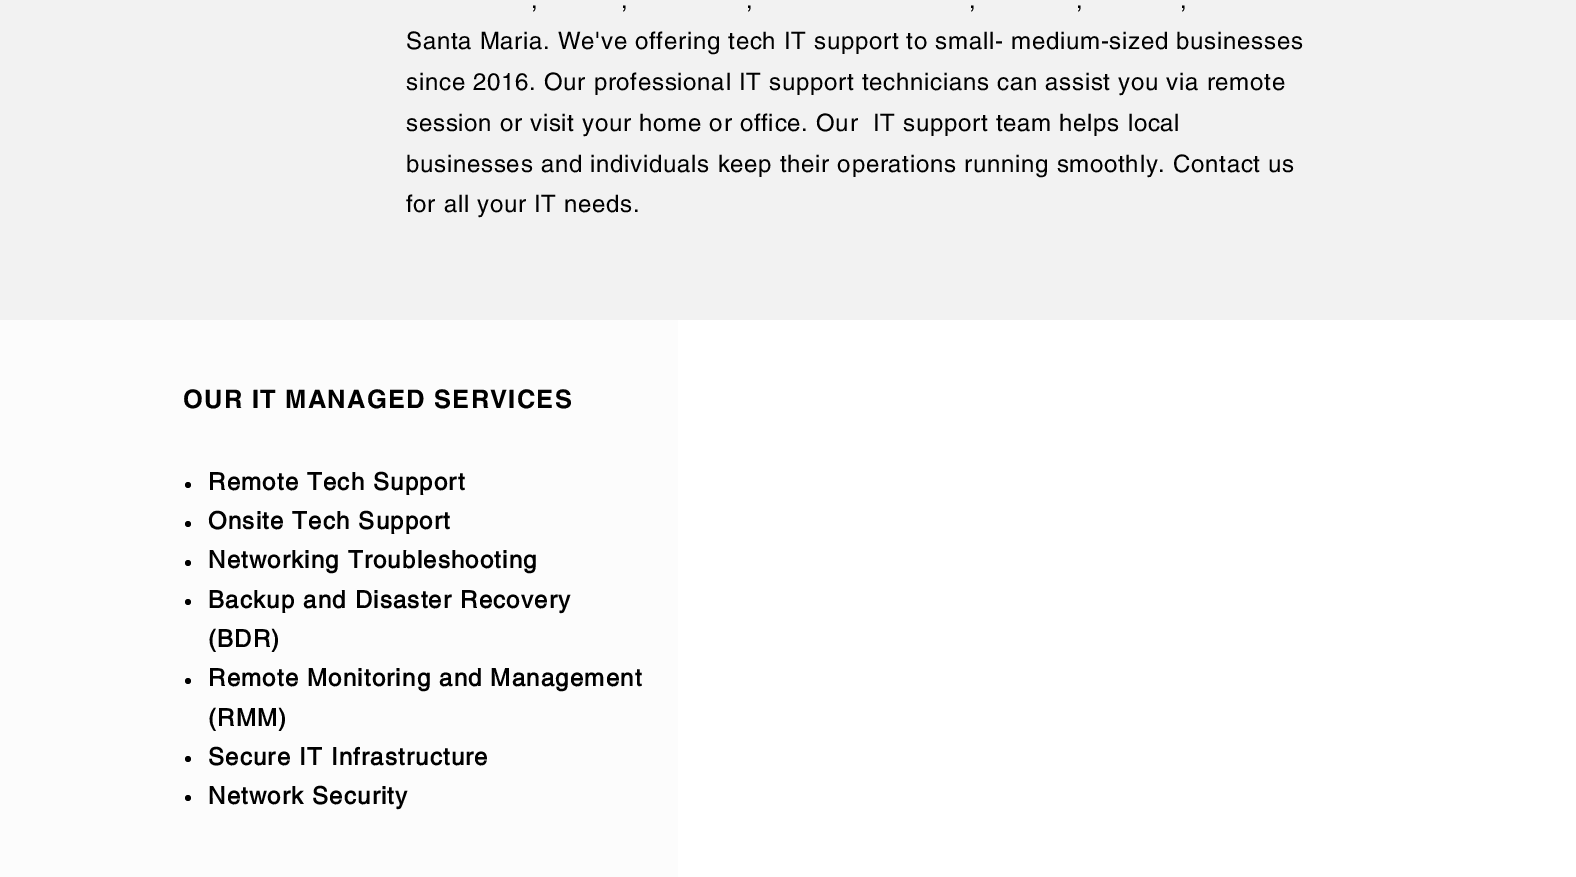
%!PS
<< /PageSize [1576 877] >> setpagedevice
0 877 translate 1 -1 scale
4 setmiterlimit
0.949 setgray
0 0 1576 877 rectfill
/helvetica-Regular [24 0 0 -24 0 0] selectfont
0 setgray
531 8 moveto 0.72 0 (,) ashow
621 8 moveto 0.72 0 (,) ashow
746 8 moveto 0.72 0 (,) ashow
969 8 moveto 0.72 0 (,) ashow
1076 8 moveto 0.72 0 (,) ashow
1180 8 moveto 0.72 0 (,) ashow
406 49 moveto 0.72 0 (Santa Maria. We've offering tech IT support to small- medium-sized businesses) ashow
406 90 moveto 0.72 0 (since 2016. Our professional IT support technicians can assist you via remote) ashow
406 131 moveto 0.72 0 (session or visit your home or office. Our  IT support team helps local) ashow
406 172 moveto 0.72 0 (businesses and individuals keep their operations running smoothly. Contact us) ashow
406 212 moveto 0.72 0 (for all your IT needs.) ashow
0.988 setgray
0 320 678 557 rectfill
/helvetica-Bold [25.5 0 0 -25.5 0 0] selectfont
0 setgray
183 408 moveto 1.25 0 (OUR IT MANAGED SERVICES) ashow
newpath 188 485 3 0 360 arc closepath fill
/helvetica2-Bold [24 0 0 -24 0 0] selectfont
208 490 moveto 1.2 0 (Remote Tech Support) ashow
newpath 188 524 3 0 360 arc closepath fill
208 529 moveto 1.2 0 (Onsite Tech Support) ashow
newpath 188 563 3 0 360 arc closepath fill
208 568 moveto 1.2 0 (Networking Troubleshooting) ashow
newpath 188 602 3 0 360 arc closepath fill
208 608 moveto 1.2 0 (Backup and Disaster Recovery) ashow
208 647 moveto 1.2 0 (\(BDR\)) ashow
newpath 188 681 3 0 360 arc closepath fill
208 686 moveto 1.2 0 (Remote Monitoring and Management) ashow
208 726 moveto 1.2 0 (\(RMM\)) ashow
newpath 188 759 3 0 360 arc closepath fill
208 765 moveto 1.2 0 (Secure IT Infrastructure) ashow
newpath 188 798 3 0 360 arc closepath fill
208 804 moveto 1.2 0 (Network Security) ashow
1 setgray
678 320 898 557 rectfill
showpage
